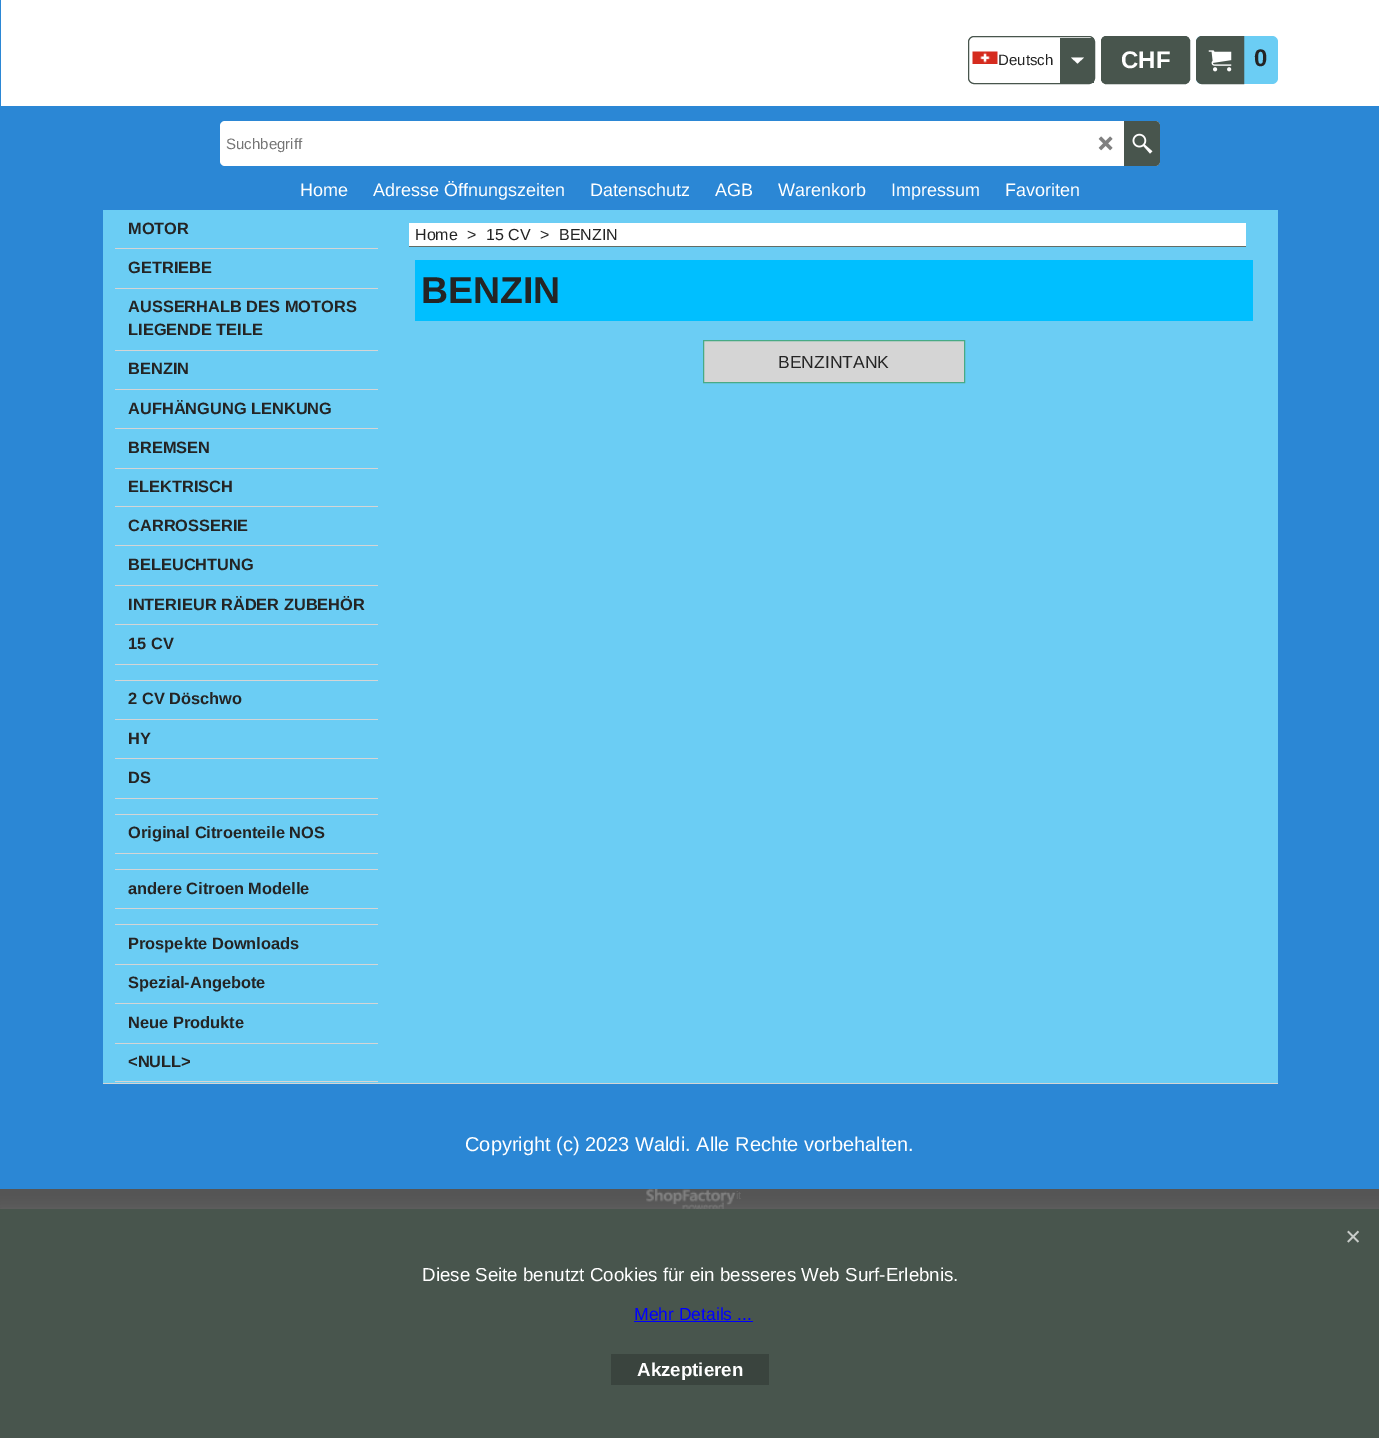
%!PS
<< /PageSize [1379 1438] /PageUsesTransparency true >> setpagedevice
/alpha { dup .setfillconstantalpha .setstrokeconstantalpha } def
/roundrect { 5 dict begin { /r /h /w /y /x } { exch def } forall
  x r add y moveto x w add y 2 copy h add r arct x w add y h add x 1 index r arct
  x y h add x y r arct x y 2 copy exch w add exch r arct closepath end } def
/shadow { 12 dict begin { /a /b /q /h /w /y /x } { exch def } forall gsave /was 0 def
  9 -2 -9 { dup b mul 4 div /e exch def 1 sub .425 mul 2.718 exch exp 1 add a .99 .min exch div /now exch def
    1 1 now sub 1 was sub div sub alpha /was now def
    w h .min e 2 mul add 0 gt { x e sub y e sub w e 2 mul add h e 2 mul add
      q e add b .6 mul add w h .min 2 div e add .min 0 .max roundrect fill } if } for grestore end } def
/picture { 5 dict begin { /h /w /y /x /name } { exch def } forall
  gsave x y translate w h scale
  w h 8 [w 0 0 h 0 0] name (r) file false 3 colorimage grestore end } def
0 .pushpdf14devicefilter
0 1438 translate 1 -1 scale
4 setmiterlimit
0.333 setgray
0 0 1379 1438 rectfill
0.169 0.529 0.835 setrgbcolor
0 0 1379 1189 rectfill
1 setgray
1 0 1378 106 rectfill
0.282 0.333 0.302 setrgbcolor
968.5 36.5 126 47 5.5 roundrect stroke
(img1.rgb) 972 51 26 13 picture
/LiberationSans-Regular [15 0 0 -15 0 0] selectfont
0.141 setgray
998 65 moveto (Deutsch) show
0.282 0.333 0.302 setrgbcolor
1060 38 34 45 rectfill
1 setgray
newpath 1071 57.5 moveto 1077.5 63.5 lineto 1084 57.5 lineto closepath fill
0.282 0.333 0.302 setrgbcolor
1101.5 36.5 88 47 4.5 roundrect gsave fill grestore
stroke
/LiberationSans-Bold [24 0 0 -24 0 0] selectfont
1 setgray
1121 68 moveto (CHF) show
0.42 0.804 0.957 setrgbcolor
1196 36 82 48 6 roundrect fill
0.282 0.333 0.302 setrgbcolor
newpath 1202 36.5 moveto 1243.5 36.5 lineto 1243.5 83.5 lineto 1202 83.5 lineto 1199 83.5 1196.5 81 1196.5 78 curveto 1196.5 42 lineto 1196.5 39 1199 36.5 1202 36.5 curveto closepath gsave fill grestore
stroke
(img2.rgb) 1208 50 24 22 picture
0.141 setgray
1254 66 moveto (0) show
1 setgray
220 121 940 45 5 roundrect fill
/LiberationSans-Regular [15 0 0 -15 0 0] selectfont
0.459 setgray
226 149 moveto (Suchbegriff) show
(img3.rgb) 1098 136 15 15 picture
0.282 0.333 0.302 setrgbcolor
newpath 1124 121 moveto 1155 121 lineto 1158 121 1160 123 1160 126 curveto 1160 161 lineto 1160 164 1158 166 1155 166 curveto 1124 166 lineto closepath fill
(img4.rgb) 1132 133 21 21 picture
/LiberationSans-Regular [18 0 0 -18 0 0] selectfont
1 setgray
300 196 moveto (Home) show
373 196 moveto (Adresse Öffnungszeiten) show
590 196 moveto (Datenschutz) show
715 196 moveto (AGB) show
778 196 moveto (Warenkorb) show
891 196 moveto (Impressum) show
1005 196 moveto (Favoriten) show
0.42 0.804 0.957 setrgbcolor
103 210 1175 873 rectfill
0.835 setgray
115 248 263 1 rectfill
/LiberationSans-Bold [16.4 0 0 -16.4 0 0] selectfont
0.141 setgray
128 234 moveto (MOTOR) show
0.835 setgray
115 288 263 1 rectfill
0.141 setgray
128 273 moveto (GETRIEBE) show
0.835 setgray
115 350 263 1 rectfill
0.141 setgray
128 312 moveto (AUSSERHALB DES MOTORS) show
128 335 moveto (LIEGENDE TEILE) show
0.835 setgray
115 389 263 1 rectfill
0.141 setgray
128 374 moveto (BENZIN) show
0.835 setgray
115 428 263 1 rectfill
0.141 setgray
128 414 moveto (AUFHÄNGUNG LENKUNG) show
0.835 setgray
115 468 263 1 rectfill
0.141 setgray
128 453 moveto (BREMSEN) show
0.835 setgray
115 506 263 1 rectfill
0.141 setgray
128 492 moveto (ELEKTRISCH) show
0.835 setgray
115 545 263 1 rectfill
0.141 setgray
128 531 moveto (CARROSSERIE) show
0.835 setgray
115 585 263 1 rectfill
0.141 setgray
128 570 moveto (BELEUCHTUNG) show
0.835 setgray
115 624 263 1 rectfill
0.141 setgray
128 610 moveto (INTERIEUR RÄDER ZUBEHÖR) show
0.835 setgray
115 664 263 1 rectfill
0.141 setgray
128 649 moveto (15 CV) show
0.835 setgray
115 680 263 1 rectfill
115 719 263 1 rectfill
0.141 setgray
128 704 moveto (2 CV Döschwo) show
0.835 setgray
115 758 263 1 rectfill
0.141 setgray
128 744 moveto (HY) show
0.835 setgray
115 798 263 1 rectfill
0.141 setgray
128 783 moveto (DS) show
0.835 setgray
115 814 263 1 rectfill
115 853 263 1 rectfill
0.141 setgray
128 838 moveto (Original Citroenteile NOS) show
0.835 setgray
115 869 263 1 rectfill
115 908 263 1 rectfill
0.141 setgray
128 894 moveto (andere Citroen Modelle) show
0.835 setgray
115 924 263 1 rectfill
115 964 263 1 rectfill
0.141 setgray
128 949 moveto (Prospekte Downloads) show
0.835 setgray
115 1003 263 1 rectfill
0.141 setgray
128 988 moveto (Spezial-Angebote) show
0.835 setgray
115 1043 263 1 rectfill
0.141 setgray
128 1028 moveto (Neue Produkte) show
0.835 setgray
115 1081 263 1 rectfill
0.141 setgray
128 1067 moveto (<NULL>) show
1 setgray
409 223 837 23 rectfill
0.384 0.427 0.4 setrgbcolor
409 246 837 1 rectfill
/LiberationSans-Regular [16 0 0 -16 0 0] selectfont
0.141 setgray
415 240 moveto (Home) show
467 240 moveto (>) show
486 240 moveto (15 CV) show
540 240 moveto (>) show
559 240 moveto (BENZIN) show
0 0.749 1 setrgbcolor
415 260 838 61 rectfill
/LiberationSans-Bold [37.5 0 0 -37.5 0 0] selectfont
0.141 setgray
421 303 moveto (BENZIN) show
0.835 setgray
newpath 703.5 340.5 moveto 964.5 340.5 lineto 964.5 382.5 lineto 703.5 382.5 lineto closepath gsave fill grestore
0.282 0.667 0.522 setrgbcolor
stroke
/LiberationSans-Regular [17.5 0 0 -17.5 0 0] selectfont
0.141 setgray
778 368 moveto (BENZINTANK) show
0.835 setgray
103 1083 1175 1 rectfill
/LiberationSans-Regular [20 0 0 -20 0 0] selectfont
1 setgray
465 1151 moveto (Copyright \(c\) 2023 Waldi. Alle Rechte vorbehalten.) show
(img5.rgb) 646 1189 90 20 picture
/LiberationSans-Regular [11 0 0 -11 0 0] selectfont
0.412 setgray
736 1199 moveto (it) show
0.4 setgray
0 1209 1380 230 0 6 1 shadow
0.282 0.333 0.302 setrgbcolor
0 1209 1379 229 rectfill
(img6.rgb) 1347 1230 12 13 picture
/LiberationSans-Regular [18.75 0 0 -18.75 0 0] selectfont
1 setgray
422 1281 moveto (Diese Seite benutzt Cookies für ein besseres Web Surf-Erlebnis.) show
/LiberationSans-Regular [17.5 0 0 -17.5 0 0] selectfont
0 0 1 setrgbcolor
634 1320 moveto (Mehr Details ...) show
634 1321 119 1 rectfill
0.227 0.267 0.243 setrgbcolor
611 1354 158 31 rectfill
/LiberationSans-Bold [18.75 0 0 -18.75 0 0] selectfont
1 setgray
637 1376 moveto (Akzeptieren) show
.poppdf14devicefilter showpage
